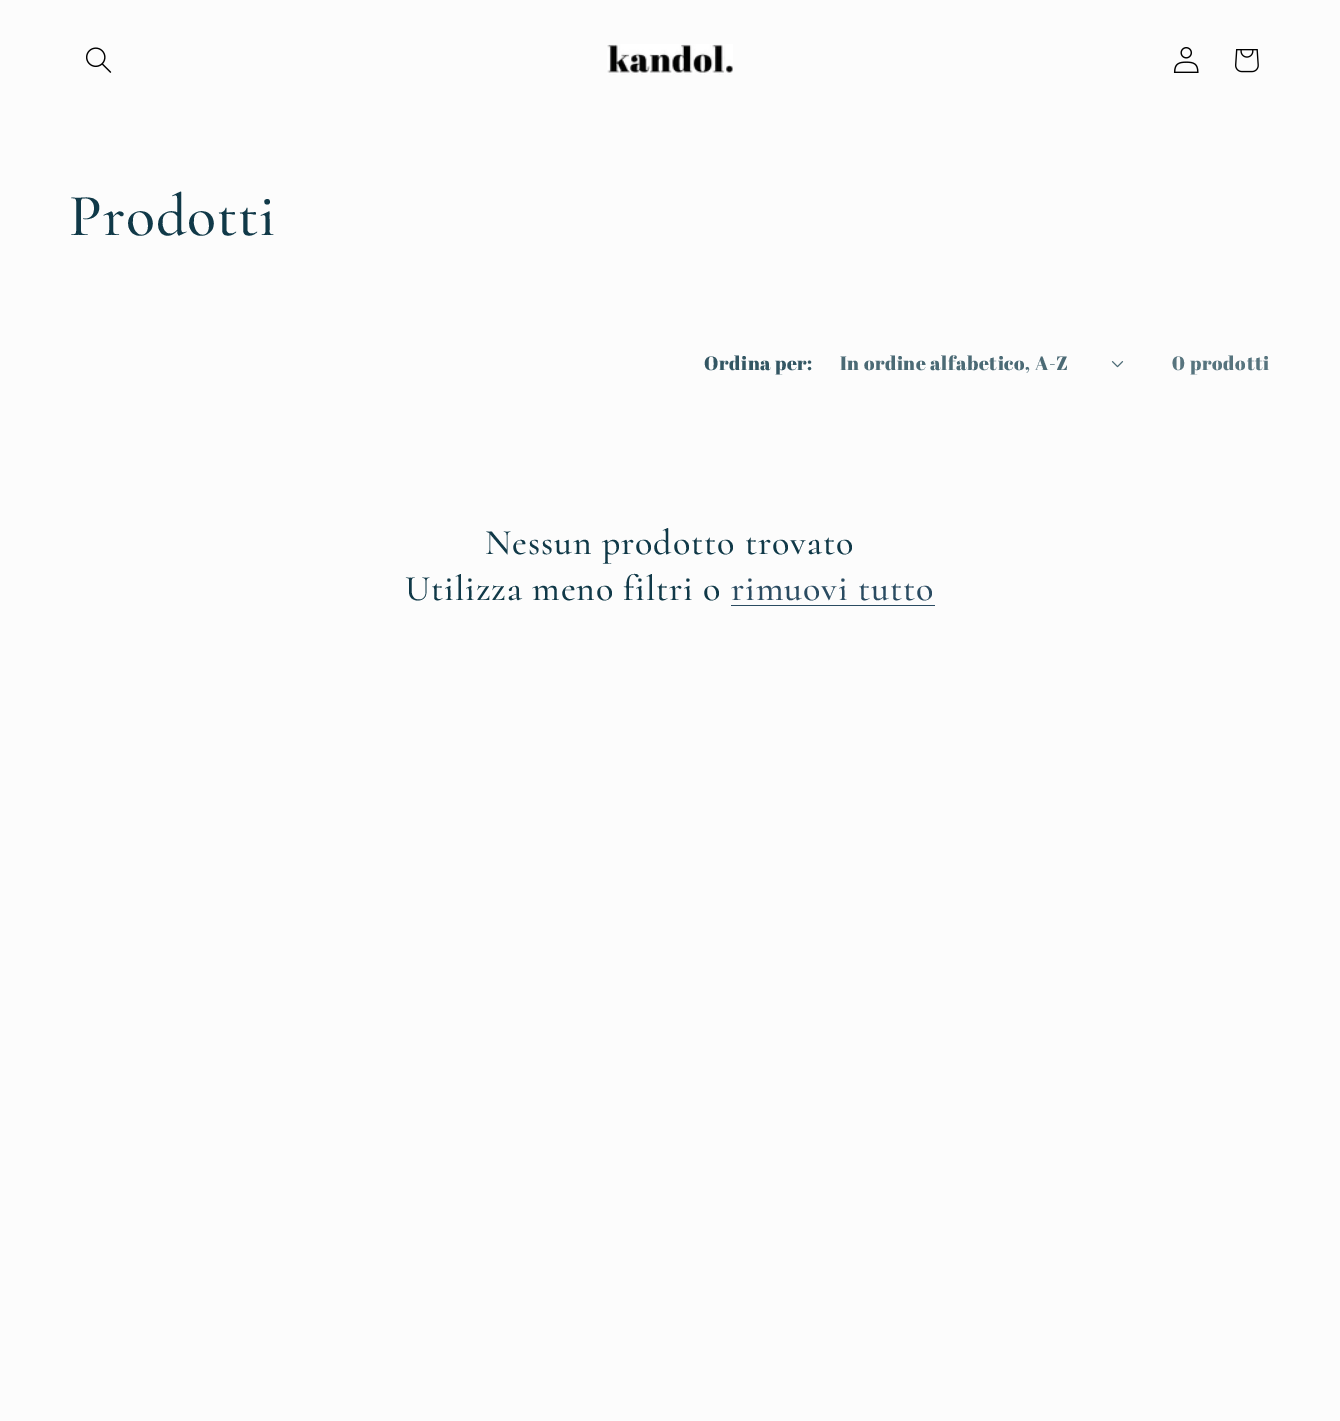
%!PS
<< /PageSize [1340 1421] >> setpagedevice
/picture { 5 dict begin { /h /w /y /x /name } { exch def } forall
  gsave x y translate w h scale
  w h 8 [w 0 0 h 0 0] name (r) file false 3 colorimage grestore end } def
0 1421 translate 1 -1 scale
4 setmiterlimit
0.988 setgray
0 0 1340 1421 rectfill
(img1.rgb) 86 47 26 26 picture
(img2.rgb) 607 44 126 31 picture
(img3.rgb) 1173 47 26 26 picture
(img4.rgb) 1235 49 24 24 picture
/Cormorant-Medium [60 0 0 -60 0 0] selectfont
0.063 0.224 0.282 setrgbcolor
69 235 moveto 0.9 0 (Prodotti) ashow
/AbrilFatface-Regular [19.25 0 0 -19.25 0 0] selectfont
0.2 0.337 0.388 setrgbcolor
704 370 moveto 0.55 0 (Ordina per:) ashow
0.294 0.416 0.459 setrgbcolor
840 370 moveto 0.55 0 (In ordine alfabetico, A-Z) ashow
(img5.rgb) 1111 361 13 7 picture
0.341 0.455 0.494 setrgbcolor
1172 370 moveto 0.75 0 (0 prodotti) ashow
/Cormorant-Medium [36 0 0 -36 0 0] selectfont
0.063 0.224 0.282 setrgbcolor
485 554 moveto 0.9 0 (Nessun prodotto trovato) ashow
405 600 moveto 0.9 0 (Utilizza meno filtri o) ashow
0.165 0.294 0.38 setrgbcolor
731 600 moveto 0.9 0 (rimuovi tutto) ashow
731 605 204 1 rectfill
showpage
